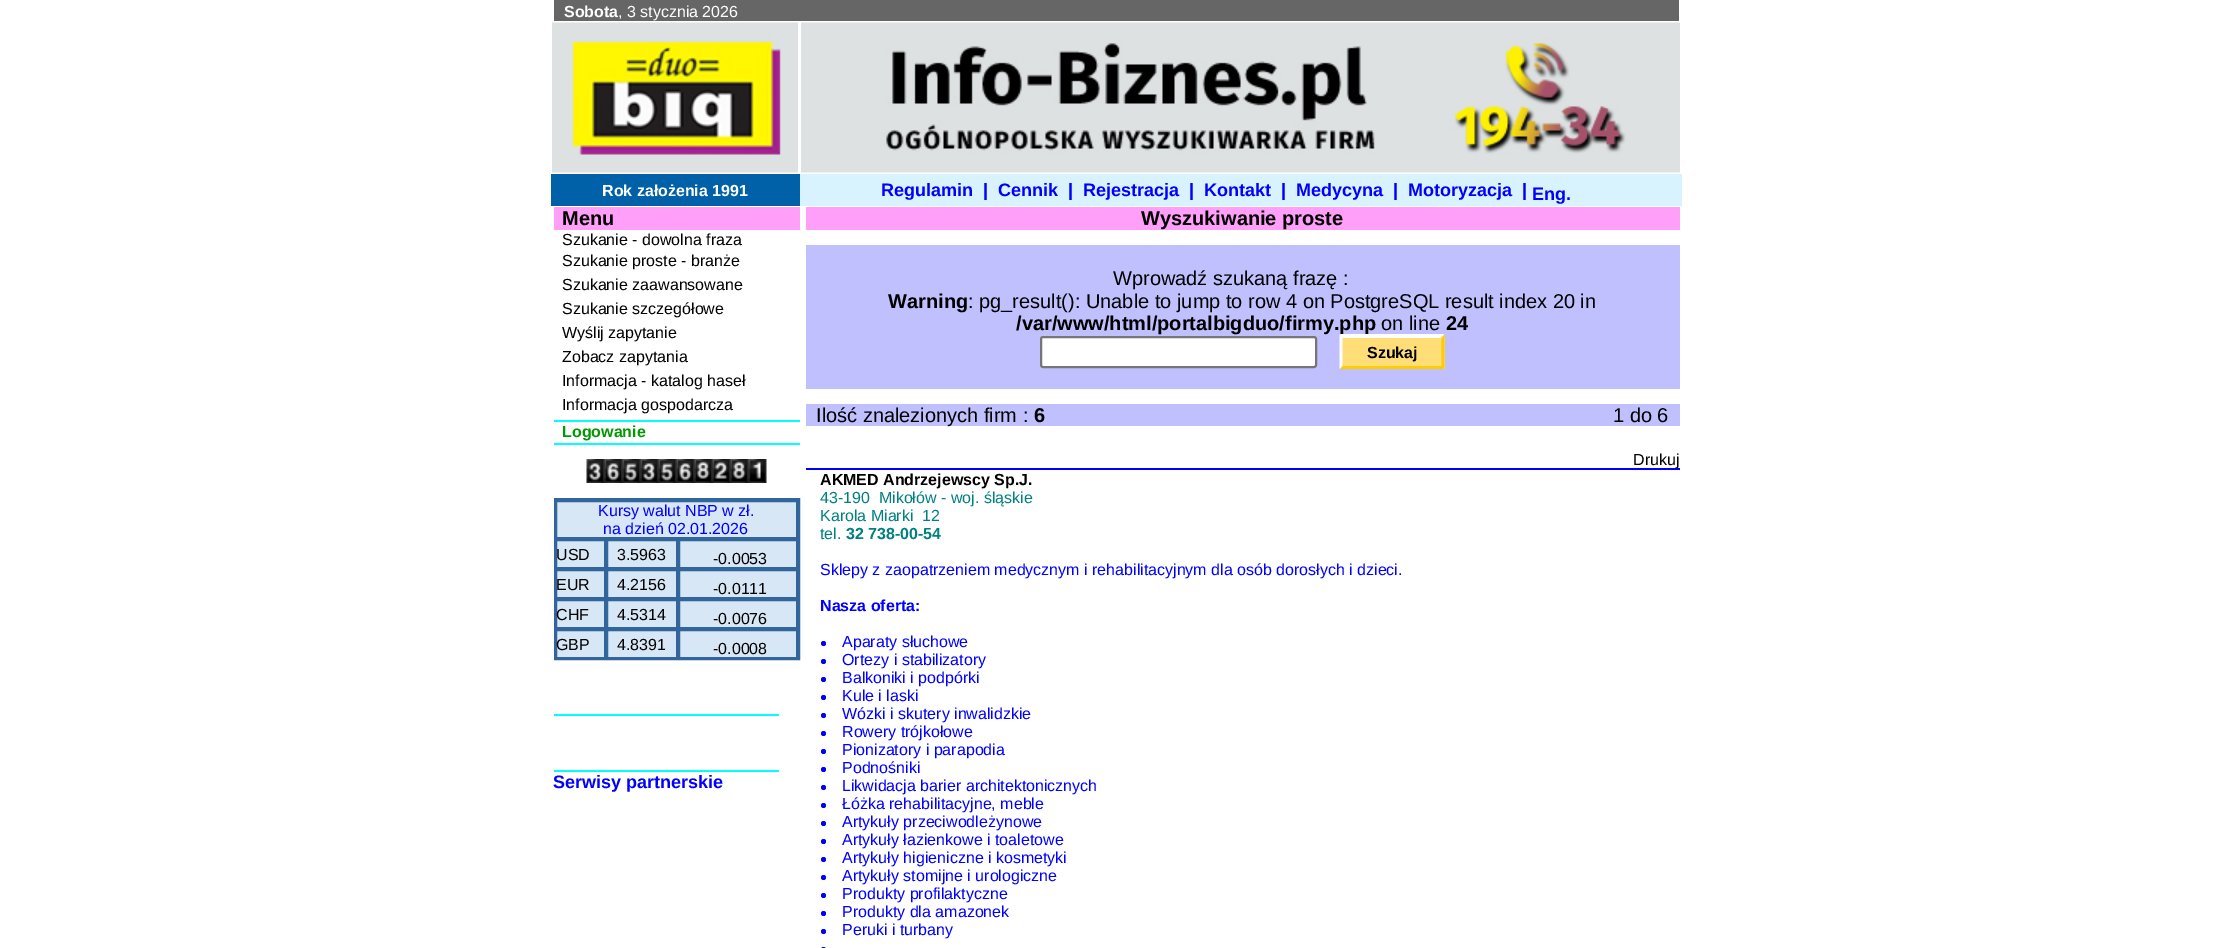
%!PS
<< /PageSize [2232 948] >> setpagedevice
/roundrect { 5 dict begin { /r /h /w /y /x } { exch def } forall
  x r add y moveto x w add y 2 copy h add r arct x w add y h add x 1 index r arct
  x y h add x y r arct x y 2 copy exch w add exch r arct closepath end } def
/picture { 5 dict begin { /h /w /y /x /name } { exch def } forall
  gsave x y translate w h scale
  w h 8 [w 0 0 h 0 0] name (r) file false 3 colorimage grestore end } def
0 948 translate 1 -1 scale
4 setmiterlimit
1 setgray
0 0 2232 948 rectfill
0.4 setgray
554 0 1125 21 rectfill
/LiberationSans-Bold [16 0 0 -16 0 0] selectfont
1 setgray
564 17 moveto (Sobota) show
/LiberationSans-Regular [16 0 0 -16 0 0] selectfont
618 17 moveto (, 3 stycznia 2026) show
(img1.rgb) 552 22 246 151 picture
(img2.rgb) 801 22 879 151 picture
0.004 0.38 0.659 setrgbcolor
551 174 249 32 rectfill
/LiberationSans-Bold [16 0 0 -16 0 0] selectfont
1 setgray
602 196 moveto (Rok założenia 1991) show
0.851 0.953 0.996 setrgbcolor
800 174 882 32 rectfill
/LiberationSans-Bold [18 0 0 -18 0 0] selectfont
0 0 1 setrgbcolor
881 196 moveto (Regulamin) show
983 196 moveto (|) show
998 196 moveto (Cennik) show
1068 196 moveto (|) show
1083 196 moveto (Rejestracja) show
1189 196 moveto (|) show
1204 196 moveto (Kontakt) show
1281 196 moveto (|) show
1296 196 moveto (Medycyna) show
1393 196 moveto (|) show
1408 196 moveto (Motoryzacja) show
1522 196 moveto (|) show
1532 200 moveto (Eng.) show
1 0.624 0.976 setrgbcolor
554 207 246 23 rectfill
/LiberationSans-Bold [20 0 0 -20 0 0] selectfont
0 setgray
562 225 moveto (Menu) show
/LiberationSans-Regular [16 0 0 -16 0 0] selectfont
562 245 moveto (Szukanie - dowolna fraza) show
562 266 moveto (Szukanie proste - branże) show
562 290 moveto (Szukanie zaawansowane) show
562 314 moveto (Szukanie szczegółowe) show
562 338 moveto (Wyślij zapytanie) show
562 362 moveto (Zobacz zapytania) show
562 386 moveto (Informacja - katalog haseł) show
562 410 moveto (Informacja gospodarcza) show
0 1 1 setrgbcolor
554 420 246 2 rectfill
/LiberationSans-Bold [16 0 0 -16 0 0] selectfont
0 0.6 0 setrgbcolor
562 437 moveto (Logowanie) show
0 1 1 setrgbcolor
554 443 246 2 rectfill
(img3.rgb) 586 459 181 24 picture
0.847 0.906 0.965 setrgbcolor
557 502 239 155 rectfill
0.196 0.396 0.612 setrgbcolor
2 setlinewidth
555 499 244 160 rectstroke
556 501 241 37 rectstroke
/LiberationSans-Regular [16 0 0 -16 0 0] selectfont
0 0 1 setrgbcolor
598 516 moveto (Kursy walut NBP w zł.) show
603 534 moveto (na dzień 02.01.2026) show
0.196 0.396 0.612 setrgbcolor
556 540 49 28 rectstroke
0 setgray
556 560 moveto (USD) show
0.196 0.396 0.612 setrgbcolor
607 540 70 28 rectstroke
0 setgray
617 560 moveto (3.5963) show
0.196 0.396 0.612 setrgbcolor
679 540 118 28 rectstroke
0 setgray
713 564 moveto (-0.0053) show
0.196 0.396 0.612 setrgbcolor
556 570 49 28 rectstroke
0 setgray
556 590 moveto (EUR) show
0.196 0.396 0.612 setrgbcolor
607 570 70 28 rectstroke
0 setgray
617 590 moveto (4.2156) show
0.196 0.396 0.612 setrgbcolor
679 570 118 28 rectstroke
0 setgray
713 594 moveto (-0.0111) show
0.196 0.396 0.612 setrgbcolor
556 600 49 28 rectstroke
0 setgray
556 620 moveto (CHF) show
0.196 0.396 0.612 setrgbcolor
607 600 70 28 rectstroke
0 setgray
617 620 moveto (4.5314) show
0.196 0.396 0.612 setrgbcolor
679 600 118 28 rectstroke
0 setgray
713 624 moveto (-0.0076) show
0.196 0.396 0.612 setrgbcolor
556 630 49 28 rectstroke
0 setgray
556 650 moveto (GBP) show
0.196 0.396 0.612 setrgbcolor
607 630 70 28 rectstroke
0 setgray
617 650 moveto (4.8391) show
0.196 0.396 0.612 setrgbcolor
679 630 118 28 rectstroke
0 setgray
713 654 moveto (-0.0008) show
0 1 1 setrgbcolor
554 714 225 2 rectfill
554 770 225 2 rectfill
/LiberationSans-Bold [18 0 0 -18 0 0] selectfont
0 0 1 setrgbcolor
553 788 moveto (Serwisy partnerskie) show
1 0.624 0.976 setrgbcolor
806 207 874 23 rectfill
/LiberationSans-Bold [20 0 0 -20 0 0] selectfont
0 setgray
1141 225 moveto (Wyszukiwanie proste) show
0.753 0.753 1 setrgbcolor
806 245 874 144 rectfill
/LiberationSans-Regular [20 0 0 -20 0 0] selectfont
0 setgray
1113 285 moveto (Wprowadź szukaną frazę :) show
/LiberationSans-Bold [20 0 0 -20 0 0] selectfont
888 308 moveto (Warning) show
/LiberationSans-Regular [20 0 0 -20 0 0] selectfont
968 308 moveto (: pg_result\(\): Unable to jump to row 4 on PostgreSQL result index 20 in) show
/LiberationSans-Bold [20 0 0 -20 0 0] selectfont
1016 330 moveto (/var/www/html/portalbigduo/firmy.php) show
/LiberationSans-Regular [20 0 0 -20 0 0] selectfont
1381 330 moveto (on line) show
/LiberationSans-Bold [20 0 0 -20 0 0] selectfont
1446 330 moveto (24) show
1 setgray
1041 337 275 30 2 roundrect gsave fill grestore
0.463 setgray
stroke
1 0.867 0.467 setrgbcolor
1340 335 105 34 rectfill
1 setgray
newpath 1340 334 moveto 1444 334 lineto 1442 338 lineto 1342 338 lineto closepath fill
1 0.8 0 setrgbcolor
newpath 1444.5 334.5 moveto 1444.5 369 lineto 1441.5 366 lineto 1441.5 337.5 lineto closepath fill
newpath 1444 369 moveto 1340 369 lineto 1342 366 lineto 1442 366 lineto closepath fill
1 setgray
newpath 1339.5 369 moveto 1339.5 334.5 lineto 1342.5 337.5 lineto 1342.5 366 lineto closepath fill
/LiberationSans-Bold [16 0 0 -16 0 0] selectfont
0 setgray
1367 358 moveto (Szukaj) show
0.753 0.753 1 setrgbcolor
806 404 874 22 rectfill
/LiberationSans-Regular [20 0 0 -20 0 0] selectfont
0 setgray
816 422 moveto (Ilość znalezionych firm :) show
/LiberationSans-Bold [20 0 0 -20 0 0] selectfont
1034 422 moveto (6) show
/LiberationSans-Regular [20 0 0 -20 0 0] selectfont
1613 422 moveto (1 do 6) show
0 0 1 setrgbcolor
806 468 874 2 rectfill
/LiberationSans-Regular [16 0 0 -16 0 0] selectfont
0 setgray
1633 465 moveto (Drukuj) show
/LiberationSans-Bold [16 0 0 -16 0 0] selectfont
820 485 moveto (AKMED Andrzejewscy Sp.J.) show
/LiberationSans-Regular [16 0 0 -16 0 0] selectfont
0 0.502 0.502 setrgbcolor
820 503 moveto (43-190  Mikołów - woj. śląskie) show
820 521 moveto (Karola Miarki  12) show
820 539 moveto (tel.) show
/LiberationSans-Bold [16 0 0 -16 0 0] selectfont
846 539 moveto (32 738-00-54) show
/LiberationSans-Regular [16 0 0 -16 0 0] selectfont
0 0 1 setrgbcolor
820 575 moveto (Sklepy z zaopatrzeniem medycznym i rehabilitacyjnym dla osób dorosłych i dzieci.) show
/LiberationSans-Bold [16 0 0 -16 0 0] selectfont
820 611 moveto (Nasza oferta:) show
newpath 823.5 643.5 2.5 0 360 arc closepath fill
/LiberationSans-Regular [16 0 0 -16 0 0] selectfont
842 647 moveto (Aparaty słuchowe) show
newpath 823.5 661.5 2.5 0 360 arc closepath fill
842 665 moveto (Ortezy i stabilizatory) show
newpath 823.5 679.5 2.5 0 360 arc closepath fill
842 683 moveto (Balkoniki i podpórki) show
newpath 823.5 697.5 2.5 0 360 arc closepath fill
842 701 moveto (Kule i laski) show
newpath 823.5 715.5 2.5 0 360 arc closepath fill
842 719 moveto (Wózki i skutery inwalidzkie) show
newpath 823.5 733.5 2.5 0 360 arc closepath fill
842 737 moveto (Rowery trójkołowe) show
newpath 823.5 751.5 2.5 0 360 arc closepath fill
842 755 moveto (Pionizatory i parapodia) show
newpath 823.5 769.5 2.5 0 360 arc closepath fill
842 773 moveto (Podnośniki) show
newpath 823.5 787.5 2.5 0 360 arc closepath fill
842 791 moveto (Likwidacja barier architektonicznych) show
newpath 823.5 805.5 2.5 0 360 arc closepath fill
842 809 moveto (Łóżka rehabilitacyjne, meble) show
newpath 823.5 823.5 2.5 0 360 arc closepath fill
842 827 moveto (Artykuły przeciwodleżynowe) show
newpath 823.5 841.5 2.5 0 360 arc closepath fill
842 845 moveto (Artykuły łazienkowe i toaletowe) show
newpath 823.5 859.5 2.5 0 360 arc closepath fill
842 863 moveto (Artykuły higieniczne i kosmetyki) show
newpath 823.5 877.5 2.5 0 360 arc closepath fill
842 881 moveto (Artykuły stomijne i urologiczne) show
newpath 823.5 895.5 2.5 0 360 arc closepath fill
842 899 moveto (Produkty profilaktyczne) show
newpath 823.5 913.5 2.5 0 360 arc closepath fill
842 917 moveto (Produkty dla amazonek) show
newpath 823.5 931.5 2.5 0 360 arc closepath fill
842 935 moveto (Peruki i turbany) show
821 947 5 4 2.5 roundrect fill
showpage
